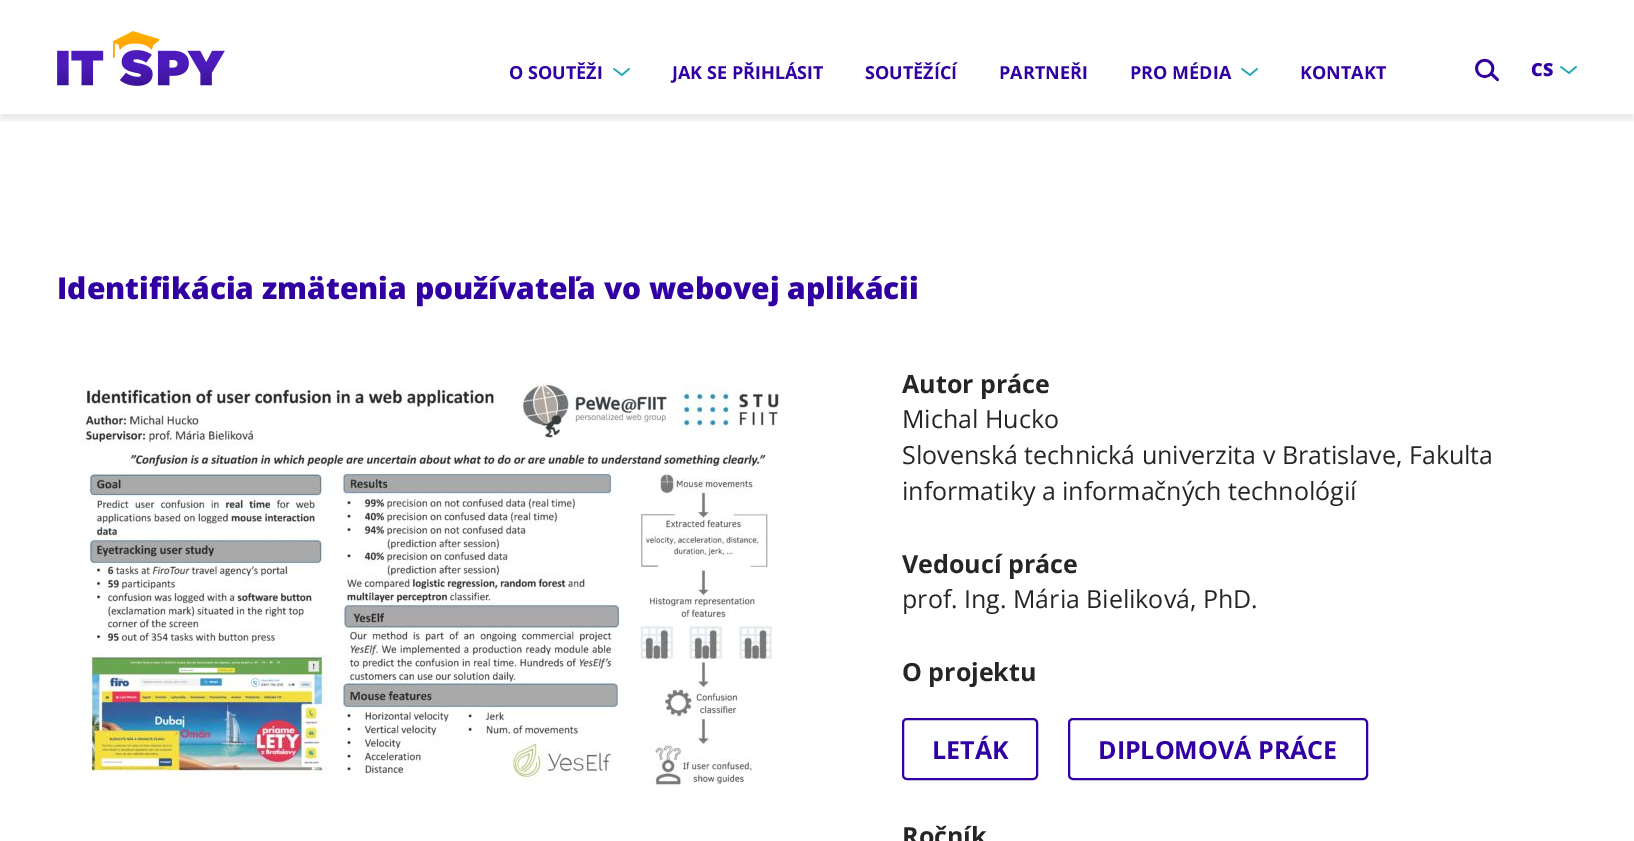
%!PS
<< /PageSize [1634 841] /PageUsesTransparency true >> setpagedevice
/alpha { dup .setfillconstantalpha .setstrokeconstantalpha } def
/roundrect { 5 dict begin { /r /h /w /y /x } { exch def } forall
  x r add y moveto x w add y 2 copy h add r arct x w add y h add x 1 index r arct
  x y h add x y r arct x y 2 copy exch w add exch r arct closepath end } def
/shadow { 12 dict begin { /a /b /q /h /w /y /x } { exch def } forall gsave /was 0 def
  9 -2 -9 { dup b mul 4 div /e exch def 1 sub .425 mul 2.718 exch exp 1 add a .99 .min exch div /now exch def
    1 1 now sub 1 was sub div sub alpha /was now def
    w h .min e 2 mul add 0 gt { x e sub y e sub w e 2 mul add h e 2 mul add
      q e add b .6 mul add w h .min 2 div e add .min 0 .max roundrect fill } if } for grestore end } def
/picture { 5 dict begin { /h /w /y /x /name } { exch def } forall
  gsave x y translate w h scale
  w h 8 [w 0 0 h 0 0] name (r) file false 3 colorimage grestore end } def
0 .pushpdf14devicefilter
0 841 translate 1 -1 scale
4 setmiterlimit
1 setgray
0 0 1634 841 rectfill
gsave
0 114 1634 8 rectclip
0 setgray
0 6 1634 114 0 3 0.08 shadow
grestore
(img1.rgb) 57 31 168 55 picture
/OpenSans-Bold [18 0 0 -18 0 0] selectfont
0.188 0 0.635 setrgbcolor
509 79 moveto (O SOUTĚŽI) show
(img2.rgb) 613 68 17 8 picture
672 79 moveto (JAK SE PŘIHLÁSIT) show
865 79 moveto (SOUTĚŽÍCÍ) show
999 79 moveto (PARTNEŘI) show
1130 79 moveto (PRO MÉDIA) show
(img2.rgb) 1241 68 17 8 picture
1300 79 moveto (KONTAKT) show
(img3.rgb) 1475 58 24 24 picture
/OpenSans-ExtraBold [18 0 0 -18 0 0] selectfont
1531 76 moveto (CS) show
(img2.rgb) 1560 66 17 8 picture
/OpenSans-ExtraBold [30 0 0 -30 0 0] selectfont
57 299 moveto (Identifikácia zmätenia používateľa vo webovej aplikácii) show
(img4.rgb) 81 382 703 408 picture
/OpenSans-Bold [25 0 0 -25 0 0] selectfont
0.145 setgray
902 393 moveto (Autor práce) show
/OpenSans-Regular [25 0 0 -25 0 0] selectfont
902 428 moveto (Michal Hucko) show
902 464 moveto (Slovenská technická univerzita v Bratislave, Fakulta) show
902 500 moveto (informatiky a informačných technológií) show
/OpenSans-Bold [25 0 0 -25 0 0] selectfont
902 573 moveto (Vedoucí práce) show
/OpenSans-Regular [25 0 0 -25 0 0] selectfont
902 608 moveto (prof. Ing. Mária Bieliková, PhD.) show
/OpenSans-Bold [25 0 0 -25 0 0] selectfont
902 681 moveto (O projektu) show
0.188 0 0.635 setrgbcolor
2 setlinewidth
903 719 134 60 4 roundrect stroke
932 759 moveto (LETÁK) show
1069 719 298 60 4 roundrect stroke
1098 759 moveto (DIPLOMOVÁ PRÁCE) show
0.145 setgray
902 845 moveto (Ročník) show
.poppdf14devicefilter showpage
